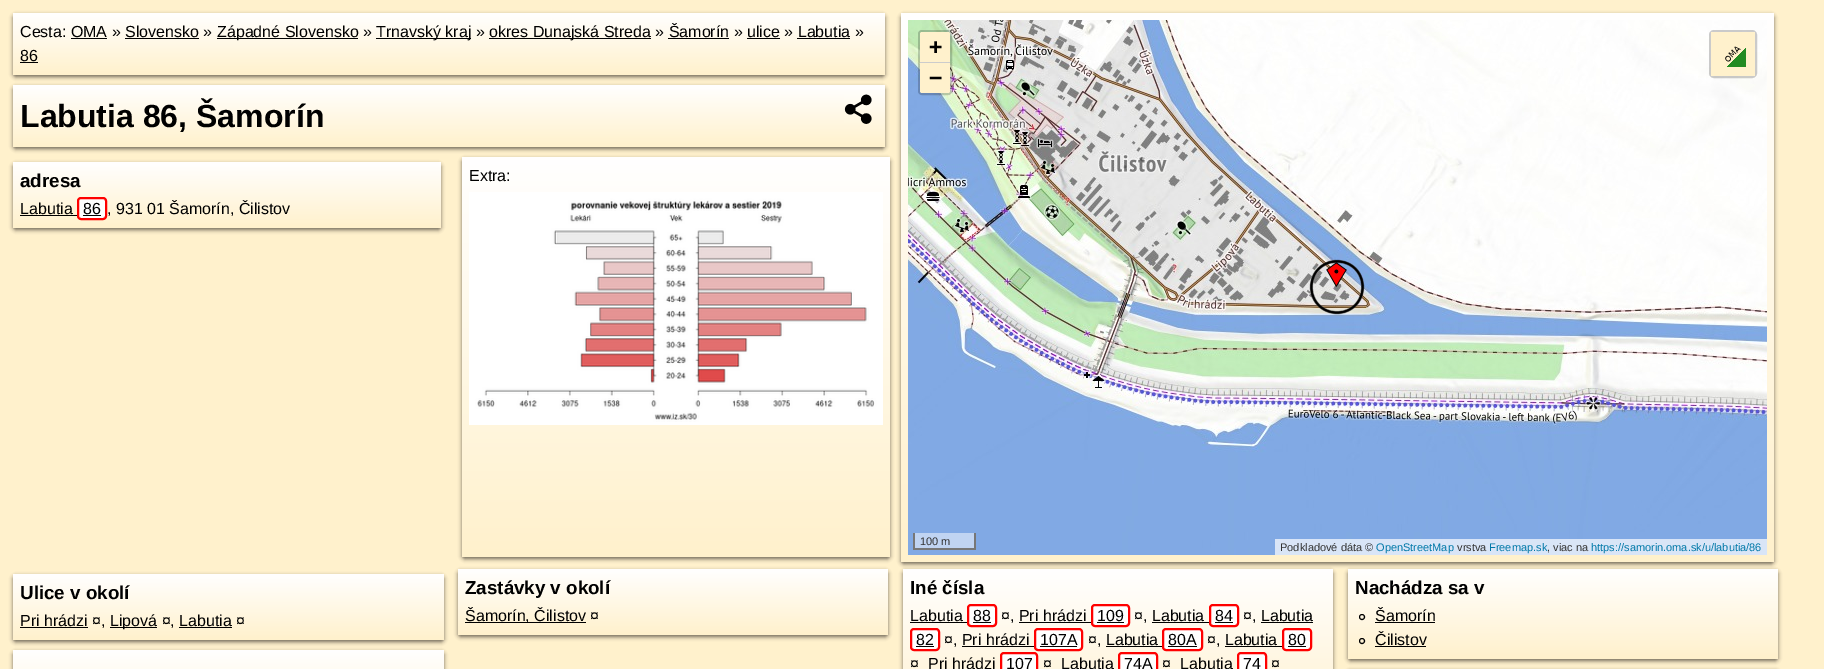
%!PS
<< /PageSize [1824 669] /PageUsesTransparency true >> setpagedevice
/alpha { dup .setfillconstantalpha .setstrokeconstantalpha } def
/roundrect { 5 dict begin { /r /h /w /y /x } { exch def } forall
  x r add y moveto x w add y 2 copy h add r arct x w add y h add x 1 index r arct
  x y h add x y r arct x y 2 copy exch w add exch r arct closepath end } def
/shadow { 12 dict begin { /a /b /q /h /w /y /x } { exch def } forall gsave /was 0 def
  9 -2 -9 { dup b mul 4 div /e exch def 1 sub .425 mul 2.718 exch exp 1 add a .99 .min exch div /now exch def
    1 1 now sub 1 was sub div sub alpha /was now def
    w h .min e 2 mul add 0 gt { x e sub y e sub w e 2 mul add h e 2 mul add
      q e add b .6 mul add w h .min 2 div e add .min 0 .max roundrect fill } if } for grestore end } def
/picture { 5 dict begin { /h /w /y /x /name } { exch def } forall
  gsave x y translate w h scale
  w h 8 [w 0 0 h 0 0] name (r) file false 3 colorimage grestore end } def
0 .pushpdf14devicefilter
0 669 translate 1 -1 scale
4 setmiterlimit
1 0.945 0.8 setrgbcolor
0 0 1824 669 rectfill
0 setgray
13 15 872 62 3 2 0.55 shadow
gsave 13 13 872 62 3 roundrect clip newpath
<< /ShadingType 2 /ColorSpace /DeviceRGB /Coords [449 13 449 75] /Extend [true true] /Function << /FunctionType 2 /Domain [0 1] /C0 [1 1 1] /C1 [1 0.945 0.8] /N 1 >> >> shfill grestore
/LiberationSans-Regular [16 0 0 -16 0 0] selectfont
20 37 moveto (Cesta: OMA » Slovensko ») show
217 38 141 1 rectfill
217 37 moveto (Západné Slovensko ») show
376 38 95 1 rectfill
376 37 moveto (Trnavský kraj ») show
489 38 162 1 rectfill
489 37 moveto (okres Dunajská Streda » Šamorín » ulice » Labutia ») show
71 38 36 1 rectfill
125 38 74 1 rectfill
668 38 61 1 rectfill
747 38 33 1 rectfill
797 38 53 1 rectfill
20 61 moveto (86) show
20 62 18 1 rectfill
13 87 872 62 3 2 0.55 shadow
gsave 13 85 872 62 3 roundrect clip newpath
<< /ShadingType 2 /ColorSpace /DeviceRGB /Coords [449 85 449 147] /Extend [true true] /Function << /FunctionType 2 /Domain [0 1] /C0 [1 1 1] /C1 [1 0.945 0.8] /N 1 >> >> shfill grestore
/LiberationSans-Bold [32 0 0 -32 0 0] selectfont
20 127 moveto (Labutia 86, Šamorín) show
(img1.rgb) 844 94 28 30 picture
13 164 428 66 3 2 0.55 shadow
gsave 13 162 428 66 3 roundrect clip newpath
<< /ShadingType 2 /ColorSpace /DeviceRGB /Coords [227 162 227 228] /Extend [true true] /Function << /FunctionType 2 /Domain [0 1] /C0 [1 1 1] /C1 [1 0.945 0.8] /N 1 >> >> shfill grestore
/LiberationSans-Bold [18.75 0 0 -18.75 0 0] selectfont
20 187 moveto (adresa) show
/LiberationSans-Regular [16 0 0 -16 0 0] selectfont
20 214 moveto (Labutia) show
20 215 57 1 rectfill
1 setgray
78 198 28 21 3 roundrect gsave fill grestore
1 0 0 setrgbcolor
2 setlinewidth
stroke
0 setgray
83 214 moveto (86) show
83 215 18 1 rectfill
107 214 moveto (, 931 01 Šamorín, Čilistov) show
462 159 428 400 3 2 0.55 shadow
gsave 462 157 428 400 3 roundrect clip newpath
<< /ShadingType 2 /ColorSpace /DeviceRGB /Coords [676 157 676 557] /Extend [true true] /Function << /FunctionType 2 /Domain [0 1] /C0 [1 1 1] /C1 [1 0.945 0.8] /N 1 >> >> shfill grestore
469 181 moveto (Extra:) show
(img2.rgb) 469 192 414 233 picture
901 15 873 549 3 2 0.55 shadow
gsave 901 13 873 549 3 roundrect clip newpath
<< /ShadingType 2 /ColorSpace /DeviceRGB /Coords [1338 13 1338 562] /Extend [true true] /Function << /FunctionType 2 /Domain [0 1] /C0 [1 1 1] /C1 [1 0.945 0.8] /N 1 >> >> shfill grestore
(img3.rgb) 908 20 182 256 picture
(img4.rgb) 1090 20 256 256 picture
(img5.rgb) 1346 20 256 256 picture
(img6.rgb) 1602 20 165 256 picture
(img7.rgb) 908 276 182 256 picture
(img8.rgb) 1090 276 256 256 picture
(img9.rgb) 1346 276 256 256 picture
(img10.rgb) 1602 276 165 256 picture
0.506 0.663 0.894 setrgbcolor
908 532 182 23 rectfill
(img11.rgb) 1090 532 256 23 picture
(img12.rgb) 1346 532 256 23 picture
1602 532 165 23 rectfill
(img13.rgb) 1309 259 56 56 picture
(img14.rgb) 1326 262 21 25 picture
0.2 alpha
0 setgray
919 31 32 63 3 roundrect stroke
1 alpha
1 0.945 0.8 setrgbcolor
newpath 922 32 moveto 948 32 lineto 949 32 950 33 950 34 curveto 950 63 lineto 920 63 lineto 920 34 lineto 920 33 921 32 922 32 curveto closepath fill
0.8 setgray
920 62 30 1 rectfill
/DejaVuSansMono-Bold [22 0 0 -22 0 0] selectfont
0 setgray
929 54 moveto (+) show
1 0.945 0.8 setrgbcolor
newpath 920 63 moveto 950 63 lineto 950 91 lineto 950 92 949 93 948 93 curveto 922 93 lineto 921 93 920 92 920 91 curveto closepath fill
0 setgray
929 85 moveto (−) show
0.2 alpha
1710 31 46 46 4 roundrect stroke
1 alpha
1 0.945 0.8 setrgbcolor
1711 32 44 44 rectfill
(img15.rgb) 1725 46 21 21 picture
0.753 0.831 0.949 setrgbcolor
915 533 59 15 rectfill
0.467 setgray
974 533 2 17 rectfill
913 548 63 2 rectfill
913 533 2 17 rectfill
/LiberationSans-Regular [11 0 0 -11 0 0] selectfont
0.2 setgray
920 545 moveto (100 m) show
0.7 alpha
1 setgray
1275 539 492 16 rectfill
1 alpha
0.2 setgray
1280 551 moveto (Podkladové dáta ©) show
0 0.471 0.659 setrgbcolor
1376 551 moveto (OpenStreetMap) show
0.2 setgray
1457 551 moveto (vrstva) show
0 0.471 0.659 setrgbcolor
1489 551 moveto (Freemap.sk) show
0.2 setgray
1547 551 moveto (, viac na) show
0 0.471 0.659 setrgbcolor
1591 551 moveto (https://samorin.oma.sk/u/labutia/86) show
0 setgray
13 576 431 66 3 2 0.55 shadow
gsave 13 574 431 66 3 roundrect clip newpath
<< /ShadingType 2 /ColorSpace /DeviceRGB /Coords [229 574 229 640] /Extend [true true] /Function << /FunctionType 2 /Domain [0 1] /C0 [1 1 1] /C1 [1 0.945 0.8] /N 1 >> >> shfill grestore
/LiberationSans-Bold [18.75 0 0 -18.75 0 0] selectfont
20 599 moveto (Ulice v okolí) show
20 627 68 1 rectfill
/LiberationSans-Regular [16 0 0 -16 0 0] selectfont
20 626 moveto (Pri hrádzi ¤,) show
110 627 47 1 rectfill
110 626 moveto (Lipová ¤, Labutia ¤) show
179 627 53 1 rectfill
458 571 430 66 3 2 0.55 shadow
gsave 458 569 430 66 3 roundrect clip newpath
<< /ShadingType 2 /ColorSpace /DeviceRGB /Coords [673 569 673 635] /Extend [true true] /Function << /FunctionType 2 /Domain [0 1] /C0 [1 1 1] /C1 [1 0.945 0.8] /N 1 >> >> shfill grestore
/LiberationSans-Bold [18.75 0 0 -18.75 0 0] selectfont
465 594 moveto (Zastávky v okolí) show
465 622 121 1 rectfill
/LiberationSans-Regular [16 0 0 -16 0 0] selectfont
465 621 moveto (Šamorín, Čilistov ¤) show
903 571 430 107 3 2 0.55 shadow
gsave 903 569 430 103 3 roundrect clip newpath
<< /ShadingType 2 /ColorSpace /DeviceRGB /Coords [1118 569 1118 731] /Extend [true true] /Function << /FunctionType 2 /Domain [0 1] /C0 [1 1 1] /C1 [1 0.945 0.8] /N 1 >> >> shfill grestore
/LiberationSans-Bold [18.75 0 0 -18.75 0 0] selectfont
910 594 moveto (Iné čísla) show
/LiberationSans-Regular [16 0 0 -16 0 0] selectfont
910 621 moveto (Labutia) show
910 622 57 1 rectfill
1 setgray
968 605 28 21 3 roundrect gsave fill grestore
1 0 0 setrgbcolor
stroke
0 setgray
973 621 moveto (88) show
973 622 18 1 rectfill
1001 621 moveto (¤, Pri hrádzi) show
1 setgray
1092 605 37 21 3 roundrect gsave fill grestore
1 0 0 setrgbcolor
stroke
0 setgray
1097 621 moveto (109) show
1019 622 72 1 rectfill
1097 622 27 1 rectfill
1134 621 moveto (¤, Labutia) show
1 setgray
1210 605 28 21 3 roundrect gsave fill grestore
1 0 0 setrgbcolor
stroke
0 setgray
1215 621 moveto (84) show
1152 622 57 1 rectfill
1215 622 18 1 rectfill
1243 621 moveto (¤, Labutia) show
1 setgray
911 629 28 21 3 roundrect gsave fill grestore
1 0 0 setrgbcolor
stroke
0 setgray
916 645 moveto (82) show
1261 622 52 1 rectfill
916 646 18 1 rectfill
944 645 moveto (¤, Pri hrádzi) show
1 setgray
1035 629 47 21 3 roundrect gsave fill grestore
1 0 0 setrgbcolor
stroke
0 setgray
1040 645 moveto (107A) show
962 646 72 1 rectfill
1040 646 37 1 rectfill
1088 645 moveto (¤, Labutia) show
1 setgray
1163 629 39 21 3 roundrect gsave fill grestore
1 0 0 setrgbcolor
stroke
0 setgray
1168 645 moveto (80A) show
1106 646 56 1 rectfill
1168 646 29 1 rectfill
1207 645 moveto (¤, Labutia) show
1 setgray
1283 629 28 21 3 roundrect gsave fill grestore
1 0 0 setrgbcolor
stroke
0 setgray
1288 645 moveto (80) show
1225 646 57 1 rectfill
1288 646 18 1 rectfill
910 669 moveto (¤) show
928 669 moveto (Pri hrádzi) show
1 setgray
1001 653 36 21 3 roundrect gsave fill grestore
1 0 0 setrgbcolor
stroke
0 setgray
1006 669 moveto (107) show
1043 669 moveto (¤) show
1061 669 moveto (Labutia) show
1 setgray
1119 653 38 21 3 roundrect gsave fill grestore
1 0 0 setrgbcolor
stroke
0 setgray
1124 669 moveto (74A) show
1162 669 moveto (¤) show
1180 669 moveto (Labutia) show
1 setgray
1238 653 28 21 3 roundrect gsave fill grestore
1 0 0 setrgbcolor
stroke
0 setgray
1243 669 moveto (74) show
1271 669 moveto (¤) show
1348 571 430 90 3 2 0.55 shadow
gsave 1348 569 430 90 3 roundrect clip newpath
<< /ShadingType 2 /ColorSpace /DeviceRGB /Coords [1563 569 1563 659] /Extend [true true] /Function << /FunctionType 2 /Domain [0 1] /C0 [1 1 1] /C1 [1 0.945 0.8] /N 1 >> >> shfill grestore
/LiberationSans-Bold [18.75 0 0 -18.75 0 0] selectfont
1355 594 moveto (Nachádza sa v) show
1 setlinewidth
newpath 1362 617 2.5 0 360 arc closepath stroke
/LiberationSans-Regular [16 0 0 -16 0 0] selectfont
1375 621 moveto (Šamorín) show
1375 622 60 1 rectfill
newpath 1362 641 2.5 0 360 arc closepath stroke
1375 645 moveto (Čilistov) show
1375 646 51 1 rectfill
13 652 431 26 3 2 0.55 shadow
gsave 13 650 431 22 3 roundrect clip newpath
<< /ShadingType 2 /ColorSpace /DeviceRGB /Coords [229 650 229 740] /Extend [true true] /Function << /FunctionType 2 /Domain [0 1] /C0 [1 1 1] /C1 [1 0.945 0.8] /N 1 >> >> shfill grestore
1348 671 430 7 3 2 0.55 shadow
.poppdf14devicefilter showpage
